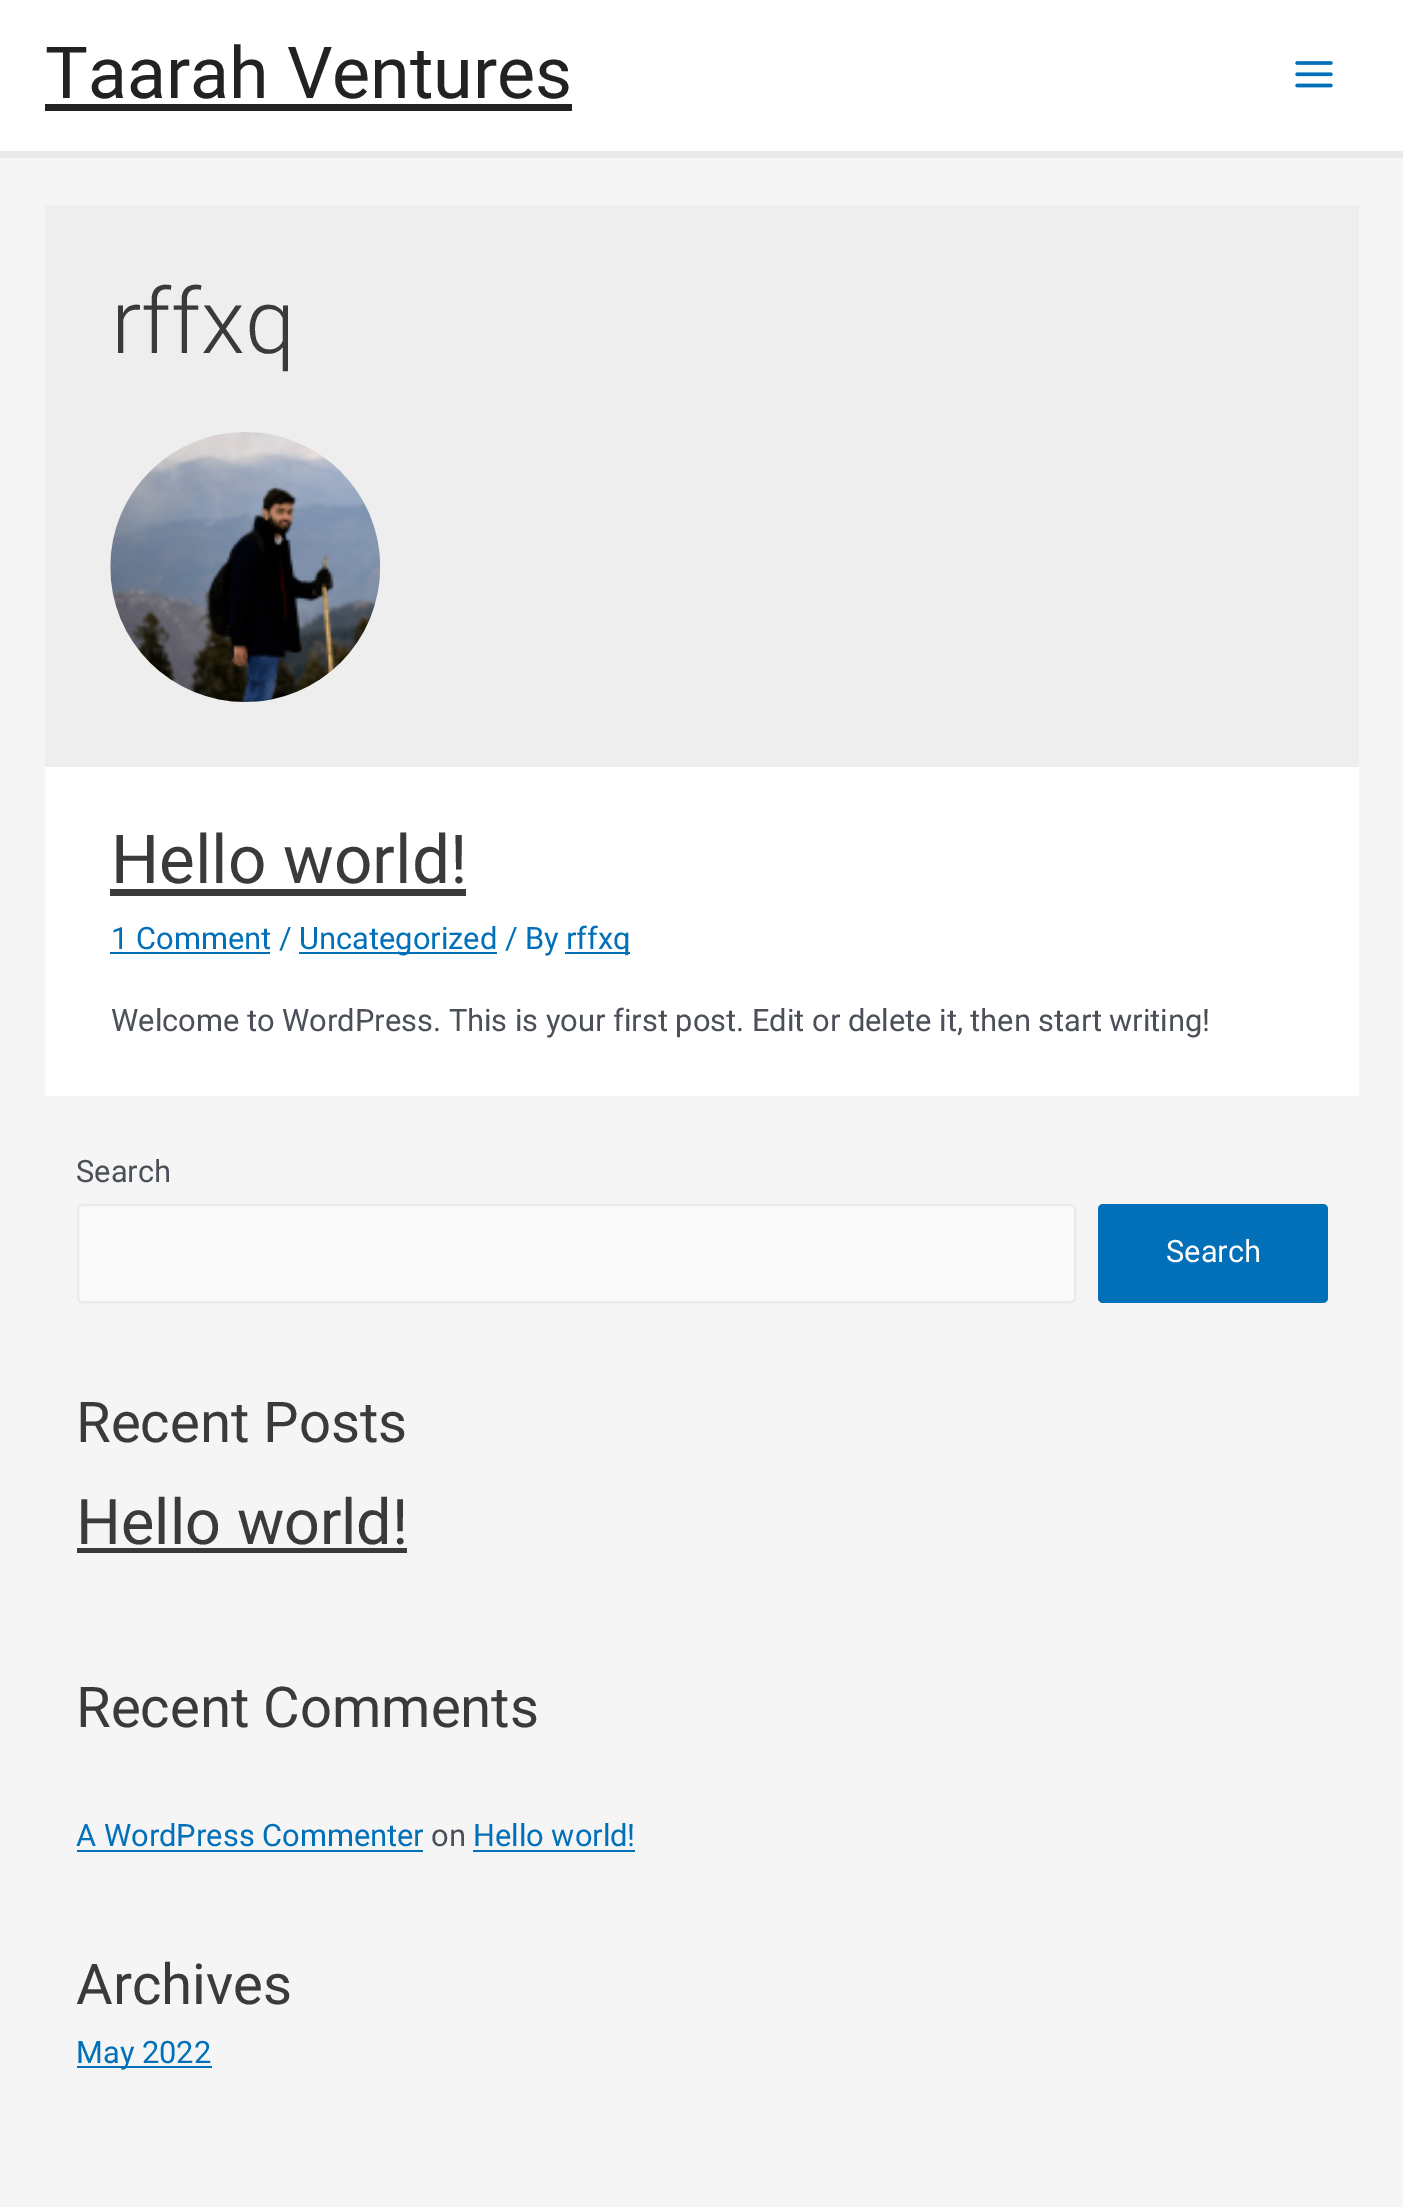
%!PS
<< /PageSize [1403 2207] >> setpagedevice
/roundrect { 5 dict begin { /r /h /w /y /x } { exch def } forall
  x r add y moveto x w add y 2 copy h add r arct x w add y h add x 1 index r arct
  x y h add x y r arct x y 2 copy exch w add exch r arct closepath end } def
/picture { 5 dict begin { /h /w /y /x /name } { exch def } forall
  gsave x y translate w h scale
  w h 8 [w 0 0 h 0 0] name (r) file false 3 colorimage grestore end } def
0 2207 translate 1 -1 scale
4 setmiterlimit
0.961 setgray
0 0 1403 2207 rectfill
1 setgray
0 0 1403 151 rectfill
0.918 setgray
0 151 1403 7 rectfill
/Roboto-Regular [71.75 0 0 -71.75 0 0] selectfont
0.133 setgray
45 98 moveto (Taarah Ventures) show
45 104 527 7 rectfill
(img1.rgb) 1295 61 38 27 picture
0.933 setgray
45 205 1314 562 rectfill
/Roboto-Light [90 0 0 -90 0 0] selectfont
0.227 setgray
111 353 moveto (rffxq) show
(img2.rgb) 110 432 271 270 picture
1 setgray
45 767 1314 329 rectfill
/Roboto-Regular [67.5 0 0 -67.5 0 0] selectfont
0.227 setgray
111 883 moveto (Hello world!) show
110 889 356 7 rectfill
/Roboto-Regular [30.8 0 0 -30.8 0 0] selectfont
0.004 0.439 0.725 setrgbcolor
111 949 moveto (1 Comment /) show
110 952 160 2 rectfill
299 952 198 2 rectfill
299 949 moveto (Uncategorized / By) show
565 952 65 2 rectfill
566 949 moveto (rffxq) show
0.294 0.31 0.345 setrgbcolor
111 1031 moveto (Welcome to WordPress. This is your first post. Edit or delete it, then start writing!) show
76 1182 moveto (Search) show
0.98 setgray
78 1205 997 97 4 roundrect gsave fill grestore
0.918 setgray
2 setlinewidth
stroke
0.004 0.439 0.725 setrgbcolor
1098 1204 230 99 5 roundrect fill
1 setgray
1166 1262 moveto (Search) show
/Roboto-Regular [56.25 0 0 -56.25 0 0] selectfont
0.227 setgray
76 1442 moveto (Recent Posts) show
/Roboto-Regular [63 0 0 -63 0 0] selectfont
76 1544 moveto (Hello world!) show
77 1548 330 5 rectfill
/Roboto-Regular [56.25 0 0 -56.25 0 0] selectfont
76 1727 moveto (Recent Comments) show
/Roboto-Regular [30.8 0 0 -30.8 0 0] selectfont
0.004 0.439 0.725 setrgbcolor
76 1846 moveto (A WordPress Commenter) show
77 1850 346 2 rectfill
0.294 0.31 0.345 setrgbcolor
431 1846 moveto (on) show
0.004 0.439 0.725 setrgbcolor
473 1846 moveto (Hello world!) show
473 1850 162 2 rectfill
/Roboto-Regular [56.25 0 0 -56.25 0 0] selectfont
0.227 setgray
76 2004 moveto (Archives) show
0.004 0.439 0.725 setrgbcolor
77 2066 135 2 rectfill
/Roboto-Regular [30.8 0 0 -30.8 0 0] selectfont
76 2063 moveto (May 2022) show
showpage
